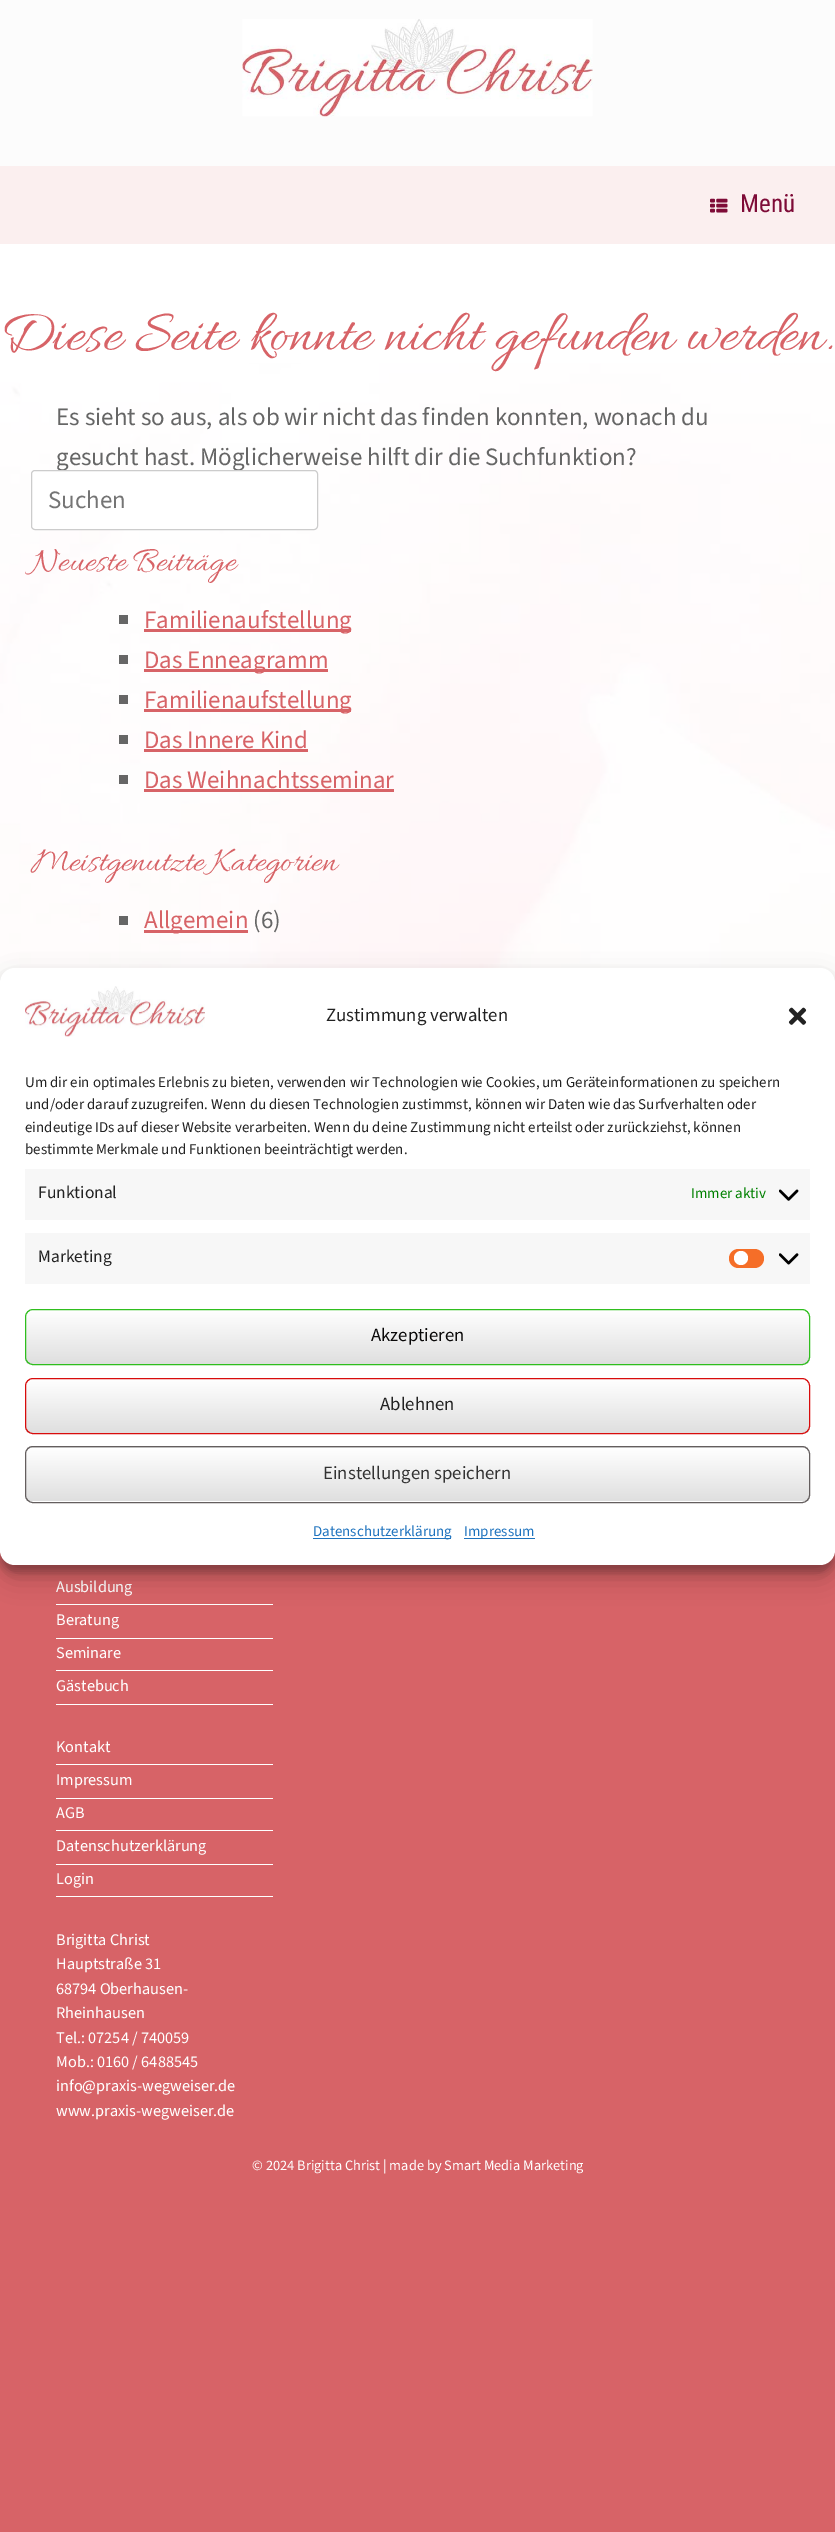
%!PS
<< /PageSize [835 2532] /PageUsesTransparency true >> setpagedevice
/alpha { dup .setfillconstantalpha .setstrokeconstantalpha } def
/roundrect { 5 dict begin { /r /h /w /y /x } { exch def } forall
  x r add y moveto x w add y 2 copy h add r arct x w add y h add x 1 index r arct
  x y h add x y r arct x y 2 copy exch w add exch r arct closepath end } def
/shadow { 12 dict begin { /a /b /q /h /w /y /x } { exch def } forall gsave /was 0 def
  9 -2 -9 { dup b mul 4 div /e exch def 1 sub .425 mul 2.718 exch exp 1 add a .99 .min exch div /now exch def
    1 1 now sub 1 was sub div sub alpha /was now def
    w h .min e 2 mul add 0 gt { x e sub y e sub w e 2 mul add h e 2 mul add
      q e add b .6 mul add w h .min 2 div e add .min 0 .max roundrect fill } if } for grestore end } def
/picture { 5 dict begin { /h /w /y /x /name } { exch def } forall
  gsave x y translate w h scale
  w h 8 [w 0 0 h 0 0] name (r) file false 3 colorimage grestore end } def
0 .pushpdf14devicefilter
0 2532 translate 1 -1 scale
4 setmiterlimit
0.843 0.388 0.404 setrgbcolor
0 0 835 2532 rectfill
0.988 setgray
0 0 835 166 rectfill
(img1.rgb) 242 19 351 98 picture
0.984 0.937 0.937 setrgbcolor
0 166 835 78 rectfill
(img2.rgb) 710 198 18 15 picture
/RobotoCondensed-Regular [25 0 0 -25 0 0] selectfont
0.494 0.043 0.216 setrgbcolor
740 212 moveto (Menü) show
1 setgray
0 244 835 119 rectfill
(img3.rgb) 0 363 835 620 picture
/Allura-Regular [60 0 0 -60 0 0] selectfont
0.843 0.388 0.404 setrgbcolor
0 349 moveto (Diese Seite konnte nicht gefunden werden.) show
/SourceSans3-ExtraLight [25 0 0 -25 0 0] selectfont
0.4 setgray
56 425 moveto (Es sieht so aus, als ob wir nicht das finden konnten, wonach du) show
56 465 moveto (gesucht hast. Möglicherweise hilft dir die Suchfunktion?) show
1 setgray
31.5 470.5 286 59 3.5 roundrect gsave fill grestore
0.8 setgray
stroke
0.459 setgray
48 508 moveto (Suchen) show
/Allura-Regular [35 0 0 -35 0 0] selectfont
0.843 0.388 0.404 setrgbcolor
31 570 moveto (Neueste Beiträge) show
0.4 setgray
119 615 9 9 rectfill
0.843 0.388 0.404 setrgbcolor
144 629 207 3 rectfill
/SourceSans3-ExtraLight [25 0 0 -25 0 0] selectfont
144 628 moveto (Familienaufstellung) show
0.4 setgray
119 655 9 9 rectfill
0.843 0.388 0.404 setrgbcolor
144 669 184 3 rectfill
144 668 moveto (Das Enneagramm) show
0.4 setgray
119 695 9 9 rectfill
0.843 0.388 0.404 setrgbcolor
144 709 207 3 rectfill
144 708 moveto (Familienaufstellung) show
0.4 setgray
119 735 9 9 rectfill
0.843 0.388 0.404 setrgbcolor
144 748 moveto (Das Innere Kind) show
144 749 164 3 rectfill
0.4 setgray
119 775 9 9 rectfill
0.843 0.388 0.404 setrgbcolor
144 788 moveto (Das Weihnachtsseminar) show
144 789 250 3 rectfill
/Allura-Regular [35 0 0 -35 0 0] selectfont
31 870 moveto (Meistgenutzte Kategorien) show
0.4 setgray
119 916 9 9 rectfill
0.843 0.388 0.404 setrgbcolor
144 930 104 3 rectfill
/SourceSans3-ExtraLight [25 0 0 -25 0 0] selectfont
144 928 moveto (Allgemein) show
0.4 setgray
253 928 moveto (\(6\)) show
1 setgray
56 1604 217 1 rectfill
/SourceSans3-ExtraLight [16.25 0 0 -16.25 0 0] selectfont
56 1592 moveto (Ausbildung) show
56 1638 217 1 rectfill
56 1625 moveto (Beratung) show
56 1670 217 1 rectfill
56 1658 moveto (Seminare) show
56 1704 217 1 rectfill
56 1691 moveto (Gästebuch) show
56 1764 217 1 rectfill
56 1752 moveto (Kontakt) show
56 1798 217 1 rectfill
56 1785 moveto (Impressum) show
56 1830 217 1 rectfill
56 1818 moveto (AGB) show
56 1864 217 1 rectfill
56 1851 moveto (Datenschutzerklärung) show
56 1896 217 1 rectfill
56 1884 moveto (Login) show
56 1945 moveto (Brigitta Christ) show
56 1969 moveto (Hauptstraße 31) show
56 1994 moveto (68794 Oberhausen-) show
56 2018 moveto (Rheinhausen) show
56 2043 moveto (Tel.: 07254 / 740059) show
56 2067 moveto (Mob.: 0160 / 6488545) show
56 2091 moveto (info@praxis-wegweiser.de) show
56 2116 moveto (www.praxis-wegweiser.de) show
/SourceSans3-ExtraLight [14.4 0 0 -14.4 0 0] selectfont
252 2170 moveto (© 2024 Brigitta Christ | made by Smart Media Marketing) show
0 setgray
0 975 835 598 15 4 0.23 shadow
0 980 835 598 15 12.5 0.19 shadow
1 setgray
0 968 835 597 15 roundrect fill
(img4.rgb) 25 986 180 51 picture
/SourceSans3-ExtraLight [18.75 0 0 -18.75 0 0] selectfont
0.133 setgray
326 1021 moveto (Zustimmung verwalten) show
(img5.rgb) 788 1007 19 18 picture
/SourceSans3-ExtraLight [15 0 0 -15 0 0] selectfont
25 1087 moveto (Um dir ein optimales Erlebnis zu bieten, verwenden wir Technologien wie Cookies, um Geräteinformationen zu speichern) show
25 1109 moveto (und/oder darauf zuzugreifen. Wenn du diesen Technologien zustimmst, können wir Daten wie das Surfverhalten oder) show
25 1132 moveto (eindeutige IDs auf dieser Website verarbeiten. Wenn du deine Zustimmung nicht erteilst oder zurückziehst, können) show
25 1154 moveto (bestimmte Merkmale und Funktionen beeinträchtigt werden.) show
0.969 setgray
25 1169 785 51 rectfill
/SourceSans3-ExtraLight [17.5 0 0 -17.5 0 0] selectfont
0.133 setgray
38 1198 moveto (Funktional) show
/SourceSans3-ExtraLight [15 0 0 -15 0 0] selectfont
0 0.502 0 setrgbcolor
691 1198 moveto (Immer aktiv) show
(img6.rgb) 779 1189 20 12 picture
0.969 setgray
25 1233 785 51 rectfill
/SourceSans3-ExtraLight [17.5 0 0 -17.5 0 0] selectfont
0.133 setgray
38 1262 moveto (Marketing) show
0.961 0.431 0.157 setrgbcolor
729 1249 35 19 9.5 roundrect fill
1 setgray
newpath 741 1258 7 0 360 arc closepath fill
(img7.rgb) 779 1253 20 12 picture
gsave
25 1309 785 56 8 roundrect clip newpath
gsave newpath 25 1310 moveto 810 1310 lineto 810 1364 lineto 25 1364 lineto closepath clip newpath
<< /ShadingType 2 /ColorSpace /DeviceRGB /Coords [26 1364 26 1310] /Extend [true true] /Function << /FunctionType 2 /Domain [0 1] /C0 [0.875 0.875 0.875] /C1 [1 1 1] /N 1 >> >> shfill grestore
grestore
0.184 0.745 0.118 setrgbcolor
25.5 1309.5 784 55 7.5 roundrect stroke
/SourceSans3-ExtraLight [18.75 0 0 -18.75 0 0] selectfont
0.039 0.035 0.035 setrgbcolor
371 1341 moveto (Akzeptieren) show
gsave
25 1378 785 56 8 roundrect clip newpath
gsave newpath 25 1379 moveto 810 1379 lineto 810 1433 lineto 25 1433 lineto closepath clip newpath
<< /ShadingType 2 /ColorSpace /DeviceRGB /Coords [26 1433 26 1379] /Extend [true true] /Function << /FunctionType 2 /Domain [0 1] /C0 [0.875 0.875 0.875] /C1 [1 1 1] /N 1 >> >> shfill grestore
grestore
0.847 0.047 0.047 setrgbcolor
25.5 1378.5 784 55 7.5 roundrect stroke
0.133 setgray
380 1410 moveto (Ablehnen) show
gsave
25 1446 785 57 8 roundrect clip newpath
gsave newpath 25 1446 moveto 810 1446 lineto 810 1448 lineto 25 1448 lineto closepath clip newpath
<< /ShadingType 2 /ColorSpace /DeviceRGB /Coords [26 1448 26 1394] /Extend [true true] /Function << /FunctionType 2 /Domain [0 1] /C0 [0.875 0.875 0.875] /C1 [1 1 1] /N 1 >> >> shfill grestore
gsave newpath 25 1448 moveto 810 1448 lineto 810 1501 lineto 25 1501 lineto closepath clip newpath
<< /ShadingType 2 /ColorSpace /DeviceRGB /Coords [26 1501 26 1448] /Extend [true true] /Function << /FunctionType 2 /Domain [0 1] /C0 [0.875 0.875 0.875] /C1 [1 1 1] /N 1 >> >> shfill grestore
grestore
0.392 0.369 0.369 setrgbcolor
25.5 1446.5 784 56 7.5 roundrect stroke
0.2 setgray
323 1479 moveto (Einstellungen speichern) show
0.118 0.451 0.745 setrgbcolor
313 1538 138 1 rectfill
/SourceSans3-ExtraLight [15 0 0 -15 0 0] selectfont
313 1536 moveto (Datenschutzerklärung) show
464 1538 71 1 rectfill
464 1536 moveto (Impressum) show
.poppdf14devicefilter showpage
